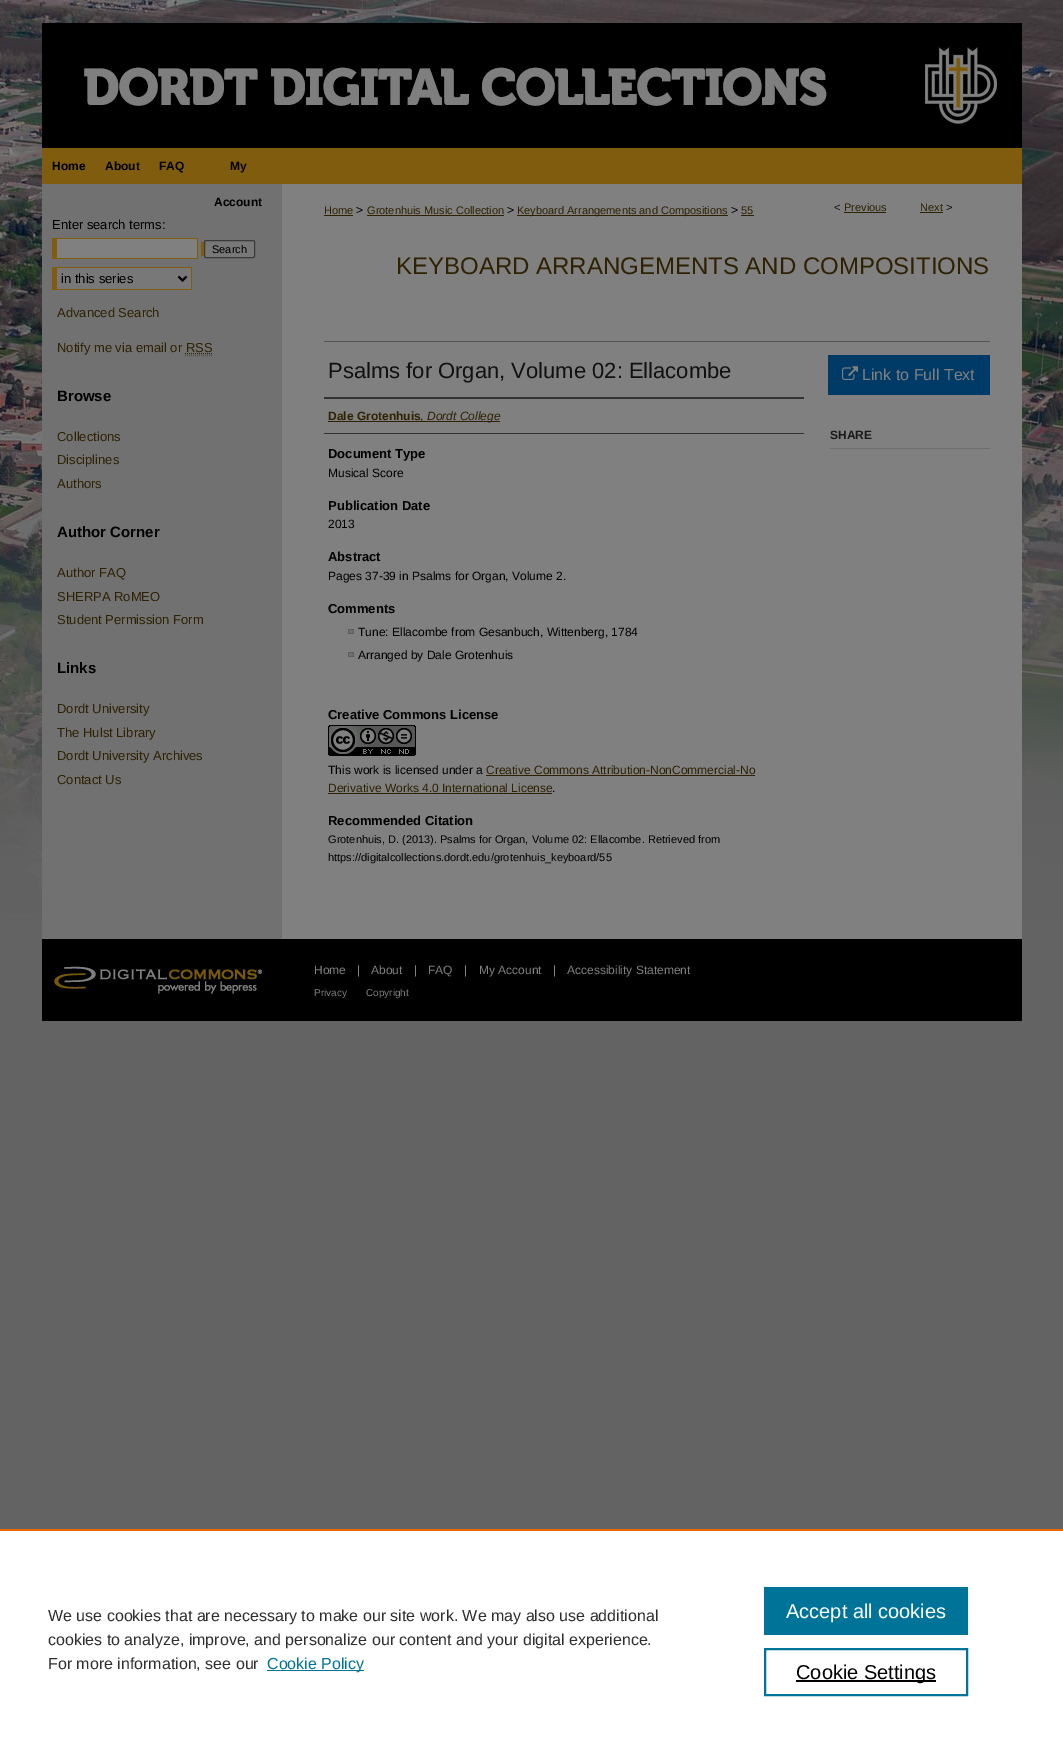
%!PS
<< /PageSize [1063 1749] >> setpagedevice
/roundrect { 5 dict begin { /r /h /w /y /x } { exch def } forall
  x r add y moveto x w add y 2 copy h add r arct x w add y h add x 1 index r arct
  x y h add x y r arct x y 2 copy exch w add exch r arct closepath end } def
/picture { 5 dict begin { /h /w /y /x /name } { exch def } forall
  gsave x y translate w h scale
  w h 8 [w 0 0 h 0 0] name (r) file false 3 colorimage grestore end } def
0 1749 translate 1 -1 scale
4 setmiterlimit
0.388 setgray
0 0 1063 1749 rectfill
(img1.rgb) 0 0 1063 920 picture
0 setgray
42 23 980 125 rectfill
(img2.rgb) 82 47 916 80 picture
0.502 0.361 0.055 setrgbcolor
42 148 980 36 rectfill
/LiberationSans-Bold [12 0 0 -12 0 0] selectfont
0 setgray
52 170 moveto (Home) show
105 170 moveto (About) show
159 170 moveto (FAQ) show
230 170 moveto (My) show
0.443 setgray
42 184 240 755 rectfill
0 setgray
214 206 moveto (Account) show
0.502 setgray
282 184 740 755 rectfill
/LiberationSans-Regular [13 0 0 -13 0 0] selectfont
0 setgray
52 229 moveto (Enter search terms:) show
0.502 0.361 0.055 setrgbcolor
52 238 146 21 rectfill
201 242 3 14 rectfill
0.502 setgray
57 239 140 19 rectfill
0.471 setgray
204.5 240.5 50 17 1.5 roundrect gsave fill grestore
0.231 setgray
stroke
/LiberationSans-Regular [11 0 0 -11 0 0] selectfont
0 setgray
212 253 moveto (Search) show
0.471 setgray
57 268 134 21 rectfill
0.502 0.361 0.055 setrgbcolor
52 267 140 1 rectfill
191 267 1 23 rectfill
52 289 140 1 rectfill
52 267 5 23 rectfill
0 setgray
2 setlinewidth
newpath 178.5 276.5 moveto 182.5 280.5 lineto 186.5 276.5 lineto stroke
/LiberationSans-Regular [13 0 0 -13 0 0] selectfont
61 283 moveto (in this series) show
0.18 0.133 0.012 setrgbcolor
57 317 moveto (Advanced Search) show
57 352 moveto (Notify me via email or RSS) show
1 setlinewidth
[1 1] 0 setdash
newpath 185 353.5 moveto 212 353.5 lineto stroke
0.302 setgray
newpath 185 355.5 moveto 212 355.5 lineto stroke
/LiberationSans-Bold [15 0 0 -15 0 0] selectfont
0 setgray
57 401 moveto (Browse) show
/LiberationSans-Regular [13 0 0 -13 0 0] selectfont
0.18 0.133 0.012 setrgbcolor
57 441 moveto (Collections) show
57 464 moveto (Disciplines) show
57 488 moveto (Authors) show
/LiberationSans-Bold [15 0 0 -15 0 0] selectfont
0 setgray
57 537 moveto (Author Corner) show
/LiberationSans-Regular [13 0 0 -13 0 0] selectfont
0.18 0.133 0.012 setrgbcolor
57 577 moveto (Author FAQ) show
57 601 moveto (SHERPA RoMEO) show
57 624 moveto (Student Permission Form) show
/LiberationSans-Bold [15 0 0 -15 0 0] selectfont
0 setgray
57 673 moveto (Links) show
/LiberationSans-Regular [13 0 0 -13 0 0] selectfont
0.18 0.133 0.012 setrgbcolor
57 713 moveto (Dordt University) show
57 737 moveto (The Hulst Library) show
57 760 moveto (Dordt University Archives) show
57 784 moveto (Contact Us) show
/LiberationSans-Regular [11 0 0 -11 0 0] selectfont
324 214 moveto (Home) show
324 215 29 1 rectfill
/LiberationSans-Regular [12 0 0 -12 0 0] selectfont
0 setgray
356 214 moveto (>) show
/LiberationSans-Regular [11 0 0 -11 0 0] selectfont
0.18 0.133 0.012 setrgbcolor
367 214 moveto (Grotenhuis Music Collection) show
367 215 137 1 rectfill
/LiberationSans-Regular [12 0 0 -12 0 0] selectfont
0 setgray
507 214 moveto (>) show
0.18 0.133 0.012 setrgbcolor
517 215 211 1 rectfill
/LiberationSans-Regular [11 0 0 -11 0 0] selectfont
517 214 moveto (Keyboard Arrangements and Compositions) show
/LiberationSans-Regular [12 0 0 -12 0 0] selectfont
0 setgray
731 214 moveto (>) show
/LiberationSans-Regular [11 0 0 -11 0 0] selectfont
0.18 0.133 0.012 setrgbcolor
741 214 moveto (55) show
741 215 13 1 rectfill
0.067 setgray
834 211 moveto (<) show
0.18 0.133 0.012 setrgbcolor
844 211 moveto (Previous) show
844 212 42 1 rectfill
920 211 moveto (Next) show
920 212 23 1 rectfill
0.067 setgray
946 211 moveto (>) show
/LiberationSans-Regular [24 0 0 -24 0 0] selectfont
0.18 0.133 0.012 setrgbcolor
396 274 moveto (KEYBOARD ARRANGEMENTS AND COMPOSITIONS) show
0.333 setgray
324 341 666 1 rectfill
/LiberationSans-Regular [22 0 0 -22 0 0] selectfont
0.067 setgray
328 378 moveto (Psalms for Organ, Volume 02: Ellacombe) show
0.2 setgray
324 397 480 2 rectfill
324 433 480 1 rectfill
/LiberationSans-Bold [12 0 0 -12 0 0] selectfont
0.18 0.133 0.012 setrgbcolor
328 420 moveto (Dale Grotenhuis) show
328 421 172 1 rectfill
/LiberationSans-Regular [12 0 0 -12 0 0] selectfont
420 420 moveto (,) show
/LiberationSans-Italic [12 0 0 -12 0 0] selectfont
427 420 moveto (Dordt College) show
/LiberationSans-Bold [13 0 0 -13 0 0] selectfont
0 setgray
328 458 moveto (Document Type) show
/LiberationSans-Regular [12 0 0 -12 0 0] selectfont
328 477 moveto (Musical Score) show
/LiberationSans-Bold [13 0 0 -13 0 0] selectfont
328 510 moveto (Publication Date) show
/LiberationSans-Regular [12 0 0 -12 0 0] selectfont
328 528 moveto (2013) show
/LiberationSans-Bold [13 0 0 -13 0 0] selectfont
328 561 moveto (Abstract) show
/LiberationSans-Regular [12 0 0 -12 0 0] selectfont
328 580 moveto (Pages 37-39 in Psalms for Organ, Volume 2.) show
/LiberationSans-Bold [13 0 0 -13 0 0] selectfont
328 613 moveto (Comments) show
(img3.rgb) 348 629 6 5 picture
/LiberationSans-Regular [12 0 0 -12 0 0] selectfont
358 636 moveto (Tune: Ellacombe from Gesanbuch, Wittenberg, 1784) show
(img3.rgb) 348 652 6 5 picture
358 659 moveto (Arranged by Dale Grotenhuis) show
/LiberationSans-Bold [13 0 0 -13 0 0] selectfont
328 719 moveto (Creative Commons License) show
(img4.rgb) 328 725 88 31 picture
/LiberationSans-Regular [12 0 0 -12 0 0] selectfont
328 774 moveto (This work is licensed under a) show
0.18 0.133 0.012 setrgbcolor
486 774 moveto (Creative Commons Attribution-NonCommercial-No) show
486 775 269 1 rectfill
328 792 moveto (Derivative Works 4.0 International License) show
328 793 224 1 rectfill
0 setgray
552 792 moveto (.) show
/LiberationSans-Bold [13 0 0 -13 0 0] selectfont
328 825 moveto (Recommended Citation) show
/LiberationSans-Regular [11 0 0 -11 0 0] selectfont
328 843 moveto (Grotenhuis, D. \(2013\). Psalms for Organ, Volume 02: Ellacombe. Retrieved from) show
328 861 moveto (https://digitalcollections.dordt.edu/grotenhuis_keyboard/55) show
0 0.227 0.4 setrgbcolor
828 355 162 40 rectfill
(img5.rgb) 842 366 16 14 picture
/LiberationSans-Regular [16 0 0 -16 0 0] selectfont
0.502 setgray
862 380 moveto (Link to Full Text) show
0.435 setgray
830 448 160 1 rectfill
/LiberationSans-Bold [12 0 0 -12 0 0] selectfont
0.102 setgray
830 439 moveto (SHARE) show
0 setgray
42 939 980 82 rectfill
(img6.rgb) 54 966 208 28 picture
/LiberationSans-Regular [12 0 0 -12 0 0] selectfont
0.502 setgray
314 974 moveto (Home) show
357 974 moveto (|) show
371 974 moveto (About) show
414 974 moveto (|) show
428 974 moveto (FAQ) show
464 974 moveto (|) show
479 974 moveto (My Account) show
553 974 moveto (|) show
567 974 moveto (Accessibility Statement) show
/LiberationSans-Regular [10 0 0 -10 0 0] selectfont
314 996 moveto (Privacy) show
366 996 moveto (Copyright) show
1 setgray
0 1531 1063 218 rectfill
0.922 0.396 0 setrgbcolor
0 1529 1063 2 rectfill
/LiberationSans-Regular [16 0 0 -16 0 0] selectfont
0.18 setgray
48 1621 moveto (We use cookies that are necessary to make our site work. We may also use additional) show
48 1645 moveto (cookies to analyze, improve, and personalize our content and your digital experience.) show
48 1669 moveto (For more information, see our) show
0 0.451 0.596 setrgbcolor
267 1670 97 1 rectfill
267 1669 moveto (Cookie Policy) show
764 1587 204 48 rectfill
/LiberationSans-Regular [20 0 0 -20 0 0] selectfont
1 setgray
786 1618 moveto (Accept all cookies) show
0 0.451 0.596 setrgbcolor
2 setlinewidth
[] 0 setdash
765 1649 202 46 rectstroke
0 setgray
796 1680 140 2 rectfill
796 1679 moveto (Cookie Settings) show
showpage
